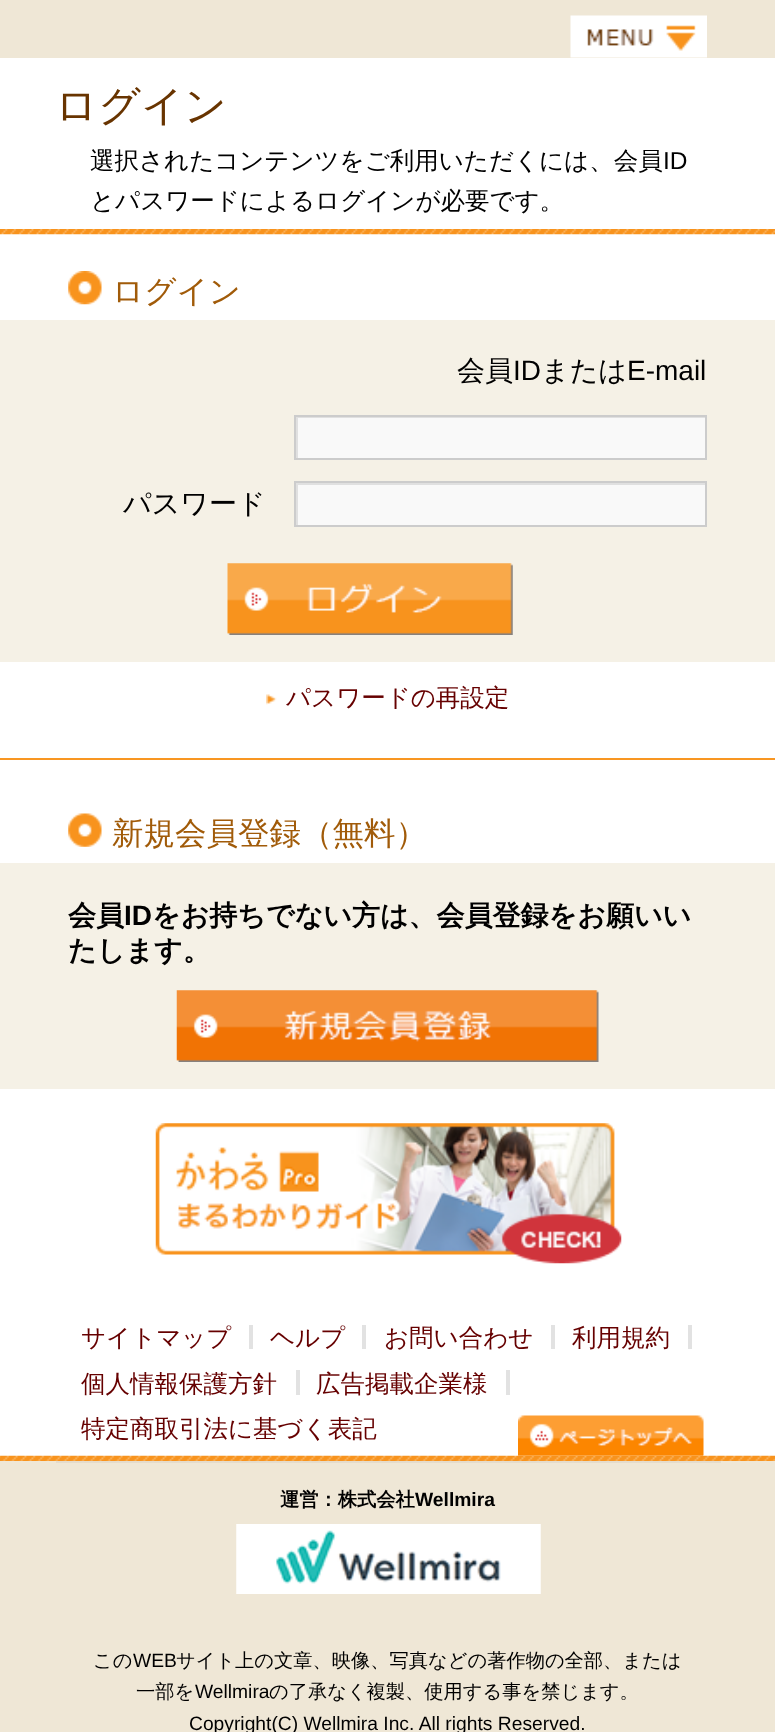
<svg xmlns="http://www.w3.org/2000/svg" xmlns:xlink="http://www.w3.org/1999/xlink" width="775" height="1732" viewBox="0 0 775 1732">
<style>
.cls-1{font:500 42px WenQuanYi Zen Hei;fill:#683400}
.cls-2{font:500 24.5px WenQuanYi Zen Hei;fill:#000000}
.cls-3{font:24.5px Liberation Sans;fill:#000000}
.cls-4{font:500 31.5px WenQuanYi Zen Hei;fill:#a15b09}
.cls-5{font:500 28px WenQuanYi Zen Hei;fill:#000000}
.cls-6{font:28px Liberation Sans;fill:#000000}
.cls-7{font:500 24.5px WenQuanYi Zen Hei;fill:#660000}
.cls-8{font:bold 28px WenQuanYi Zen Hei;fill:#000000}
.cls-9{font:bold 28px Liberation Sans;fill:#000000}
.cls-10{font:bold 19.25px WenQuanYi Zen Hei;fill:#000000}
.cls-11{font:bold 19.25px Liberation Sans;fill:#000000}
.cls-12{font:500 19.25px WenQuanYi Zen Hei;fill:#000000}
.cls-13{font:19.25px Liberation Sans;fill:#000000}
</style>
<defs>
<clipPath id="clip1"><rect x="296" y="417" width="409" height="42"/></clipPath>
<clipPath id="clip2"><rect x="296" y="483" width="409" height="42"/></clipPath>
</defs>
<rect width="100%" height="100%" fill="#efe7d6"/>
<image xlink:href="image0.png" x="570" y="15" width="137" height="43"/>
<rect fill="#ffffff" x="0" y="58" width="775" height="1398"/>
<image xlink:href="image1.png" x="0" y="229" width="775" height="6"/>
<image xlink:href="image2.png" x="68" y="271" width="34" height="34"/>
<rect fill="#f89622" x="0" y="758" width="775" height="2"/>
<rect fill="#f5f1e6" x="0" y="320" width="775" height="342"/>
<rect fill="#f9f9f9" x="298" y="418" width="407" height="40"/>
<g clip-path="url(#clip1)">
<path fill="#e0e0e0" fill-rule="evenodd" d="M122 243H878V632H122ZM298 418H707V460H298Z"/>
</g>
<rect fill="none" stroke="#cccccc" stroke-width="2" x="295" y="416" width="411" height="43"/>
<rect fill="#f9f9f9" x="298" y="485" width="407" height="40"/>
<g clip-path="url(#clip2)">
<path fill="#e0e0e0" fill-rule="evenodd" d="M122 310H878V698H122ZM298 485H707V527H298Z"/>
</g>
<rect fill="none" stroke="#cccccc" stroke-width="2" x="295" y="482" width="411" height="44"/>
<image xlink:href="image3.png" x="227" y="563" width="286" height="72"/>
<image xlink:href="image4.png" x="266" y="694" width="11" height="11"/>
<image xlink:href="image5.png" x="68" y="813" width="34" height="34"/>
<rect fill="#f5f1e6" x="0" y="863" width="775" height="226"/>
<image xlink:href="image6.png" x="176" y="990" width="423" height="72"/>
<image xlink:href="image7.png" x="155" y="1123" width="467" height="141"/>
<image xlink:href="image8.png" x="0" y="1455" width="775" height="6"/>
<rect fill="#e2e2e2" x="249" y="1325" width="4" height="24"/>
<rect fill="#e2e2e2" x="362" y="1325" width="4" height="24"/>
<rect fill="#e2e2e2" x="551" y="1325" width="4" height="24"/>
<rect fill="#e2e2e2" x="688" y="1325" width="4" height="24"/>
<rect fill="#e2e2e2" x="296" y="1370" width="4" height="25"/>
<rect fill="#e2e2e2" x="506" y="1370" width="4" height="25"/>
<rect fill="#ffffff" x="518" y="1455" width="186" height="1"/>
<image xlink:href="image9.png" x="518" y="1415" width="186" height="41"/>
<rect fill="#e5dccc" x="56" y="1461" width="665" height="2"/>
<image xlink:href="image10.png" x="236" y="1524" width="305" height="70"/>
<text class="cls-1" x="55" y="120">ログイン</text>
<text class="cls-2" x="90" y="169">選択されたコンテンツをご利用いただくには、会員</text>
<text class="cls-3" x="663" y="169">ID</text>
<text class="cls-2" x="90" y="209">とパスワードによるログインが必要です。</text>
<text class="cls-4" x="112" y="302">ログイン</text>
<text class="cls-5" x="457" y="380">会員</text>
<text class="cls-6" x="513" y="380">ID</text>
<text class="cls-5" x="541" y="380">または</text>
<text class="cls-6" x="627" y="380">E-mail</text>
<text class="cls-5" x="123" y="513">パスワード</text>
<text class="cls-7" x="286" y="706">パスワードの再設定</text>
<text class="cls-4" x="112" y="844">新規会員登録（無料）</text>
<text class="cls-8" x="68" y="925">会員</text>
<text class="cls-9" x="124" y="925">ID</text>
<text class="cls-8" x="152" y="925">をお持ちでない方は、会員登録をお願いい</text>
<text class="cls-8" x="68" y="960">たします。</text>
<text class="cls-7" x="81" y="1346">サイトマップ</text>
<text class="cls-7" x="270" y="1346">ヘルプ</text>
<text class="cls-7" x="384" y="1346">お問い合わせ</text>
<text class="cls-7" x="572" y="1346">利用規約</text>
<text class="cls-7" x="81" y="1392">個人情報保護方針</text>
<text class="cls-7" x="316" y="1392">広告掲載企業様</text>
<text class="cls-7" x="81" y="1437">特定商取引法に基づく表記</text>
<text class="cls-10" x="280" y="1506">運営：株式会社</text>
<text class="cls-11" x="415" y="1506">Wellmira</text>
<text class="cls-12" x="93" y="1667">この</text>
<text class="cls-13" x="133" y="1667">WEB</text>
<text class="cls-12" x="176" y="1667">サイト上の文章、映像、写真などの著作物の全部、または</text>
<text class="cls-12" x="136" y="1698">一部を</text>
<text class="cls-13" x="195" y="1698">Wellmira</text>
<text class="cls-12" x="269" y="1698">の了承なく複製、使用する事を禁じます。</text>
<text class="cls-13" x="189" y="1730">Copyright(C) Wellmira Inc. All rights Reserved.</text>
</svg>
